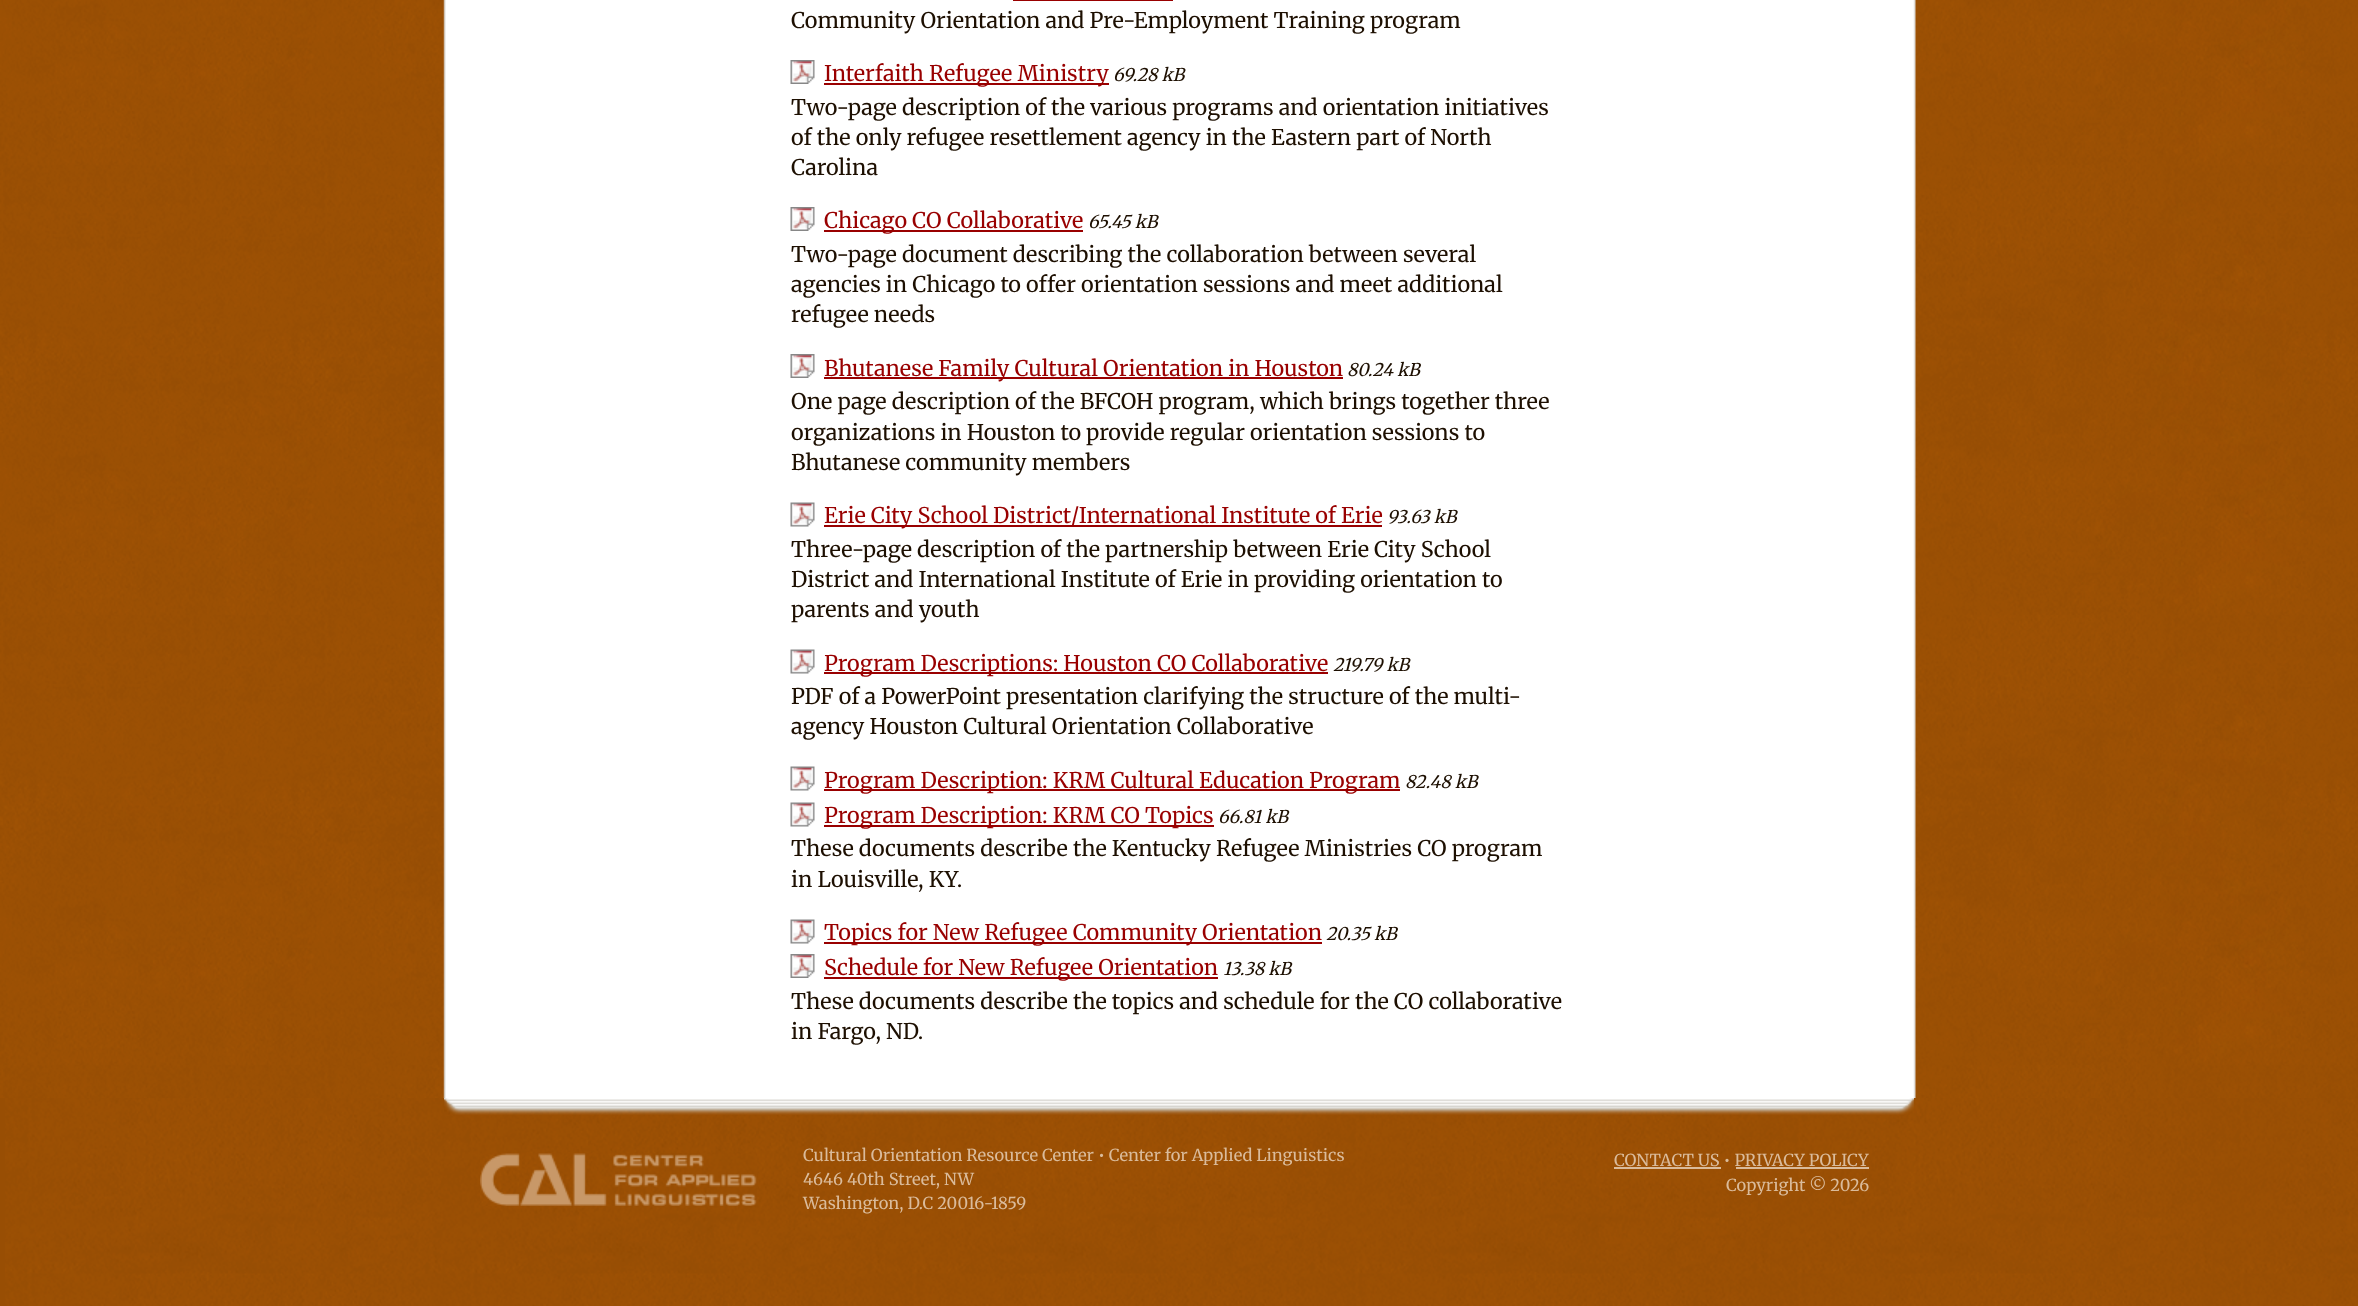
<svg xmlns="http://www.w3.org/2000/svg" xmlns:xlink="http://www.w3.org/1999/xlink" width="2358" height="1306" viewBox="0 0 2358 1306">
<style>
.cls-1{font:21.6px Merriweather;fill:#1d0f01}
.cls-2{font:21.6px Merriweather;fill:#990000}
.cls-3{font:italic 17.5px Merriweather;fill:#1d0f01}
.cls-4{font:16.5px Merriweather;fill:#dabb9b}
</style>
<rect width="100%" height="100%" fill="#ffffff"/>
<image xlink:href="image0.png" x="0" y="0" width="2358" height="1098"/>
<rect fill="#990000" x="1013" y="0" width="160" height="1"/>
<image xlink:href="image1.png" x="790" y="60" width="25" height="24"/>
<rect fill="#990000" x="824" y="83" width="285" height="2"/>
<image xlink:href="image1.png" x="790" y="207" width="25" height="24"/>
<rect fill="#990000" x="824" y="230" width="259" height="2"/>
<image xlink:href="image1.png" x="790" y="354" width="25" height="24"/>
<rect fill="#990000" x="824" y="377" width="519" height="2"/>
<image xlink:href="image2.png" x="790" y="502" width="25" height="25"/>
<rect fill="#990000" x="824" y="525" width="558" height="2"/>
<image xlink:href="image2.png" x="790" y="649" width="25" height="25"/>
<rect fill="#990000" x="824" y="672" width="504" height="2"/>
<image xlink:href="image2.png" x="790" y="766" width="25" height="25"/>
<rect fill="#990000" x="824" y="789" width="576" height="2"/>
<image xlink:href="image2.png" x="790" y="802" width="25" height="25"/>
<rect fill="#990000" x="824" y="825" width="390" height="2"/>
<image xlink:href="image2.png" x="790" y="919" width="25" height="25"/>
<rect fill="#990000" x="824" y="942" width="498" height="2"/>
<image xlink:href="image1.png" x="790" y="954" width="25" height="24"/>
<rect fill="#990000" x="824" y="977" width="394" height="2"/>
<rect fill="#984e04" x="0" y="1098" width="5" height="208"/>
<image xlink:href="image3.png" x="5" y="1098" width="2353" height="208"/>
<image xlink:href="image4.png" x="444" y="1098" width="1470" height="17"/>
<image xlink:href="image5.png" x="480" y="1153" width="277" height="53"/>
<rect fill="#dabb9b" x="1614" y="1167" width="107" height="2"/>
<rect fill="#dabb9b" x="1736" y="1167" width="133" height="2"/>
<text class="cls-1" x="791" y="28">Community Orientation and Pre-Employment Training program</text>
<text class="cls-2" x="824" y="81">Interfaith Refugee Ministry</text>
<text class="cls-3" x="1113" y="81">69.28 kB</text>
<text class="cls-1"><tspan x="791" y="115">Two-page description of the various programs and orientation initiatives</tspan><tspan x="791" y="145">of the only refugee resettlement agency in the Eastern part of North</tspan><tspan x="791" y="175">Carolina</tspan></text>
<text class="cls-2" x="824" y="228">Chicago CO Collaborative</text>
<text class="cls-3" x="1088" y="228">65.45 kB</text>
<text class="cls-1"><tspan x="791" y="262">Two-page document describing the collaboration between several</tspan><tspan x="791" y="292">agencies in Chicago to offer orientation sessions and meet additional</tspan><tspan x="791" y="322">refugee needs</tspan></text>
<text class="cls-2" x="824" y="376">Bhutanese Family Cultural Orientation in Houston</text>
<text class="cls-3" x="1347" y="376">80.24 kB</text>
<text class="cls-1"><tspan x="791" y="409">One page description of the BFCOH program, which brings together three</tspan><tspan x="791" y="440">organizations in Houston to provide regular orientation sessions to</tspan><tspan x="791" y="470">Bhutanese community members</tspan></text>
<text class="cls-2" x="824" y="523">Erie City School District/International Institute of Erie</text>
<text class="cls-3" x="1387" y="523">93.63 kB</text>
<text class="cls-1"><tspan x="791" y="557">Three-page description of the partnership between Erie City School</tspan><tspan x="791" y="587">District and International Institute of Erie in providing orientation to</tspan><tspan x="791" y="617">parents and youth</tspan></text>
<text class="cls-2" x="824" y="671">Program Descriptions: Houston CO Collaborative</text>
<text class="cls-3" x="1333" y="671">219.79 kB</text>
<text class="cls-1"><tspan x="791" y="704">PDF of a PowerPoint presentation clarifying the structure of the multi-</tspan><tspan x="791" y="734">agency Houston Cultural Orientation Collaborative</tspan></text>
<text class="cls-2" x="824" y="788">Program Description: KRM Cultural Education Program</text>
<text class="cls-3" x="1405" y="788">82.48 kB</text>
<text class="cls-2" x="824" y="823">Program Description: KRM CO Topics</text>
<text class="cls-3" x="1218" y="823">66.81 kB</text>
<text class="cls-1"><tspan x="791" y="856">These documents describe the Kentucky Refugee Ministries CO program</tspan><tspan x="791" y="887">in Louisville, KY.</tspan></text>
<text class="cls-2" x="824" y="940">Topics for New Refugee Community Orientation</text>
<text class="cls-3" x="1326" y="940">20.35 kB</text>
<text class="cls-2" x="824" y="975">Schedule for New Refugee Orientation</text>
<text class="cls-3" x="1223" y="975">13.38 kB</text>
<text class="cls-1"><tspan x="791" y="1009">These documents describe the topics and schedule for the CO collaborative</tspan><tspan x="791" y="1039">in Fargo, ND.</tspan></text>
<text class="cls-4"><tspan x="803" y="1161">Cultural Orientation Resource Center • Center for Applied Linguistics</tspan><tspan x="803" y="1185">4646 40th Street, NW</tspan><tspan x="803" y="1209">Washington, D.C 20016-1859</tspan></text>
<text class="cls-4" x="1726" y="1191">Copyright © 2026</text>
<text class="cls-4" x="1614" y="1166">CONTACT US • PRIVACY POLICY</text>
</svg>
